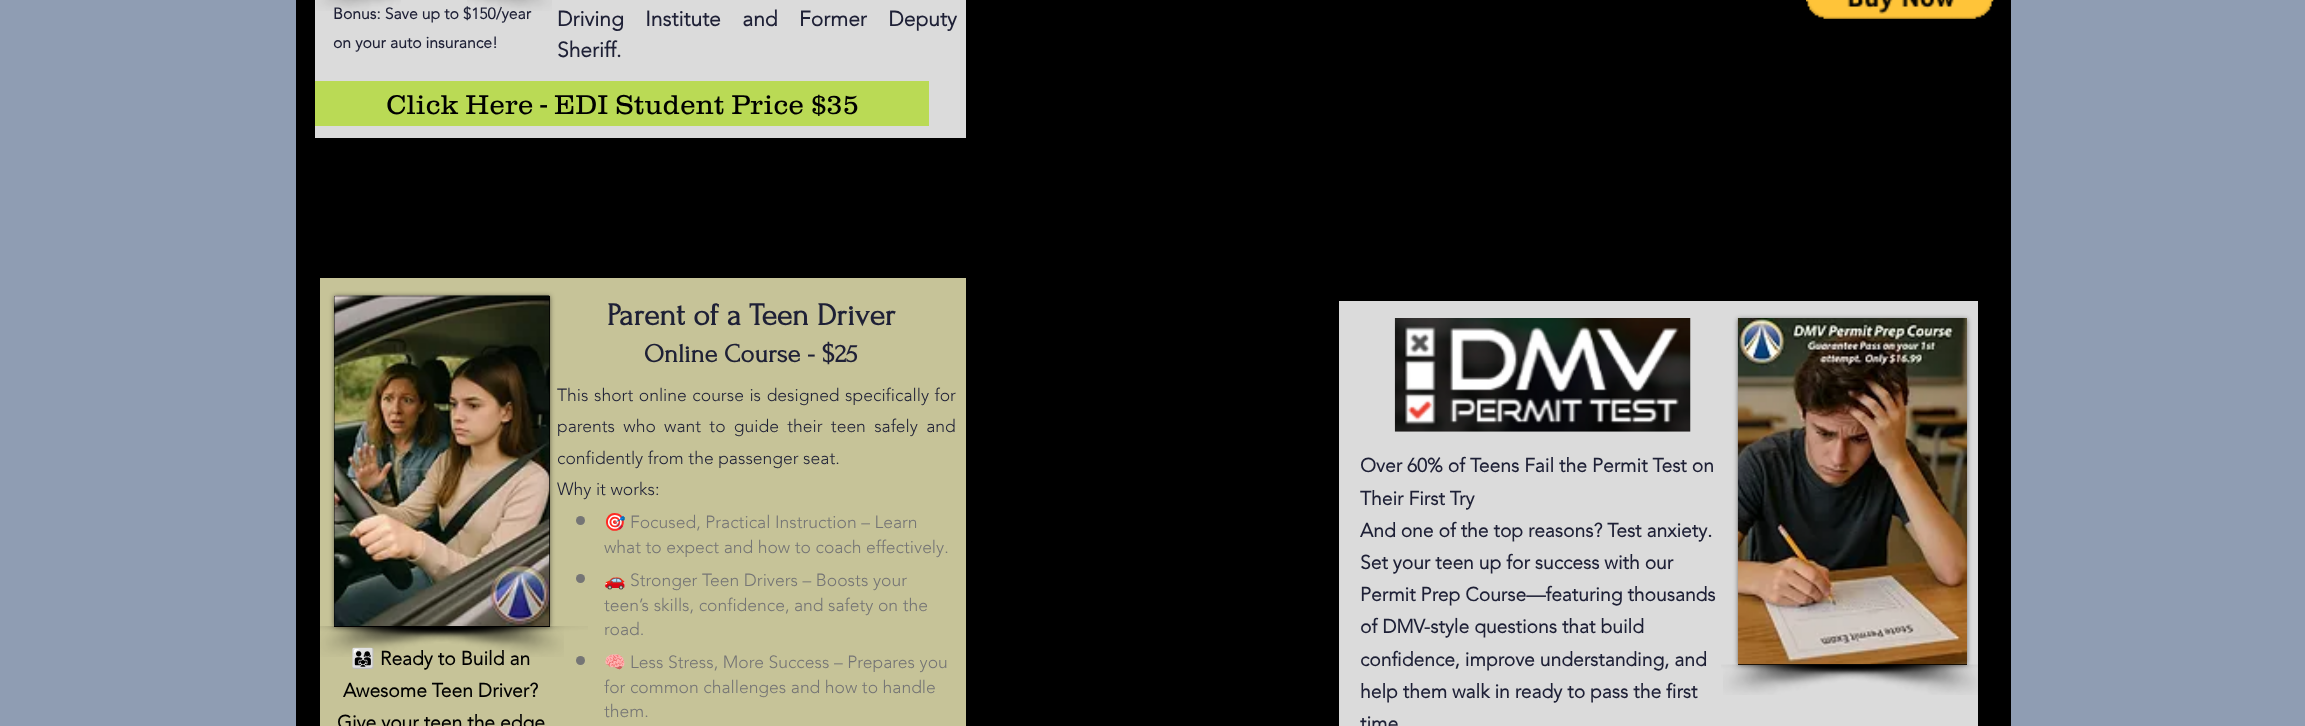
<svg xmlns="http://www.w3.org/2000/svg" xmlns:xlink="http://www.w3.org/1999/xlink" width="2305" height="726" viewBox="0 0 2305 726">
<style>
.cls-1{font:bold 15.75px 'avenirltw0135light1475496';fill:#1e2036}
.cls-2{font:bold 21px 'avenirltw0135light1475496';fill:#1e2036}
.cls-3{font:300 28px 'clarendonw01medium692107';fill:#000000}
.cls-4{font:bold 31.5px Forum;fill:#1e2036}
.cls-5{font:bold 26.25px Forum;fill:#1e2036}
.cls-6{font:bold 19.25px Noto Color Emoji;fill:#000000}
.cls-7{font:bold 19.25px 'avenirltw0135light1475496';fill:#000000}
.cls-8{font:300 17.5px 'avenirltw0135light1475496';fill:#1e2036}
.cls-9{font:17.5px Noto Color Emoji;fill:#757575}
.cls-10{font:300 17.5px 'avenirltw0135light1475496';fill:#757575}
.cls-11{font:bold 19.25px 'avenirltw0135light1475496';fill:#1e2036}
</style>
<rect width="100%" height="100%" fill="#8f9db3"/>
<rect fill="#000000" x="296" y="0" width="1715" height="726"/>
<image xlink:href="image2.png" x="1806" y="0" width="188" height="19"/>
<rect fill="#dbdbdb" x="315" y="0" width="651" height="138"/>
<rect fill="#bada55" x="315" y="81" width="614" height="45"/>
<rect fill="#c6c398" x="320" y="278" width="646" height="448"/>
<rect fill="#000000" fill-opacity="0.5" filter="blur(2.5px)" x="334" y="296" width="216" height="331"/>
<rect fill="#000000" x="334" y="296" width="216" height="331"/>
<image xlink:href="image3.png" x="334" y="295" width="216" height="331"/>
<image xlink:href="image4.png" x="320" y="626" width="268" height="31"/>
<image xlink:href="image5.png" x="320" y="626" width="244" height="31"/>
<circle fill="#757575" cx="580.5" cy="520.5" r="4.5"/>
<circle fill="#757575" cx="580.5" cy="578.5" r="4.5"/>
<circle fill="#757575" cx="580.5" cy="660.5" r="4.5"/>
<rect fill="#dbdbdb" x="1339" y="301" width="639" height="425"/>
<image xlink:href="image6.png" x="1394" y="318" width="297" height="114"/>
<rect fill="#000000" fill-opacity="0.5" filter="blur(2.5px)" x="1738" y="319" width="229" height="346"/>
<rect fill="#000000" x="1738" y="664" width="229" height="1"/>
<image xlink:href="image7.png" x="1737" y="318" width="230" height="347"/>
<image xlink:href="image9.png" x="1723" y="664" width="255" height="31"/>
<image xlink:href="image8.png" x="1721" y="664" width="257" height="31"/>
<text class="cls-1" x="333" y="19">Bonus: Save up to $150/year</text>
<image xlink:href="image1.png" x="467" y="0" width="85" height="11"/>
<image xlink:href="image0.png" x="316" y="0" width="85" height="11"/>
<text class="cls-1" x="333" y="48">on your auto insurance!</text>
<text class="cls-2"><tspan x="557" y="26" word-spacing="16">Driving Institute and Former Deputy</tspan><tspan x="557" y="57">Sheriff.</tspan></text>
<text class="cls-3" x="386" y="114">Click Here - EDI Student Price $35</text>
<text class="cls-4" x="607" y="325">Parent of a Teen Driver</text>
<text class="cls-5" x="644" y="362">Online Course - $25</text>
<text class="cls-6" x="351" y="665">👨‍👩‍👧</text>
<text class="cls-7" x="380" y="665">Ready to Build an</text>
<text class="cls-7" x="343" y="697">Awesome Teen Driver?</text>
<text class="cls-7" x="337" y="729">Give your teen the edge</text>
<text class="cls-8"><tspan x="557" y="401" word-spacing="1">This short online course is designed specifically for</tspan><tspan x="557" y="432" word-spacing="3.75">parents who want to guide their teen safely and</tspan><tspan x="557" y="464">confidently from the passenger seat.</tspan><tspan x="557" y="495">Why it works:</tspan></text>
<text class="cls-9" x="604" y="528">🎯</text>
<text class="cls-10" x="630" y="528">Focused, Practical Instruction – Learn</text>
<text class="cls-10" x="604" y="553">what to expect and how to coach effectively.</text>
<text class="cls-9" x="604" y="586">🚗</text>
<text class="cls-10" x="630" y="586">Stronger Teen Drivers – Boosts your</text>
<text class="cls-10"><tspan x="604" y="611">teen’s skills, confidence, and safety on the</tspan><tspan x="604" y="635">road.</tspan></text>
<text class="cls-9" x="604" y="668">🧠</text>
<text class="cls-10" x="630" y="668">Less Stress, More Success – Prepares you</text>
<text class="cls-10"><tspan x="604" y="693">for common challenges and how to handle</tspan><tspan x="604" y="717">them.</tspan></text>
<text class="cls-11"><tspan x="1360" y="472">Over 60% of Teens Fail the Permit Test on</tspan><tspan x="1360" y="505">Their First Try</tspan><tspan x="1360" y="537">And one of the top reasons? Test anxiety.</tspan><tspan x="1360" y="569">Set your teen up for success with our</tspan><tspan x="1360" y="601">Permit Prep Course—featuring thousands</tspan><tspan x="1360" y="633">of DMV-style questions that build</tspan><tspan x="1360" y="666">confidence, improve understanding, and</tspan><tspan x="1360" y="698">help them walk in ready to pass the first</tspan><tspan x="1360" y="730">time</tspan></text>
</svg>
